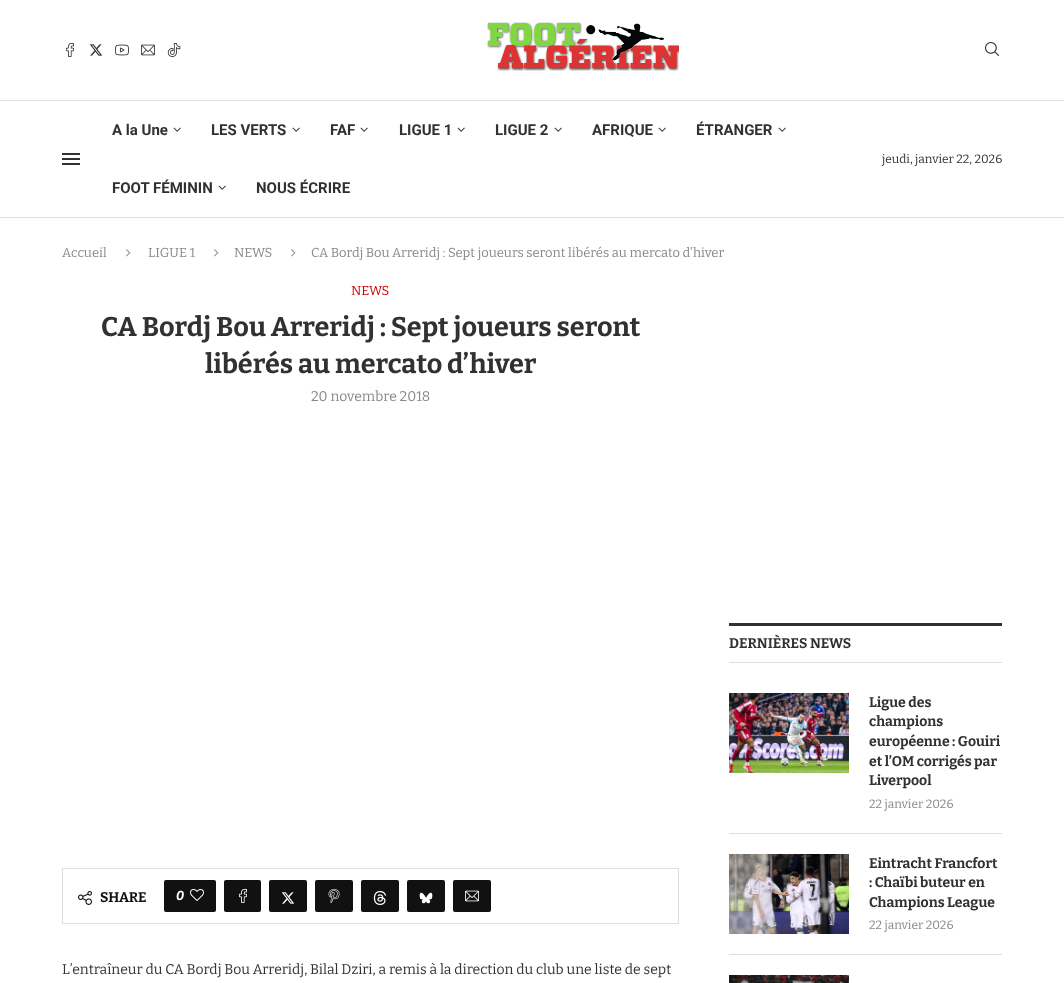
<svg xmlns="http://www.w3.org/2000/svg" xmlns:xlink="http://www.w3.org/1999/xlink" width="1064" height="983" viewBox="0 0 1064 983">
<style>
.cls-1{font:bold 15px Roboto;fill:#313131}
.cls-2{font:12px Bitter;fill:#313131}
.cls-3{font:13px Bitter;fill:#888888}
.cls-4{font:13px Bitter;fill:#cc0000}
.cls-5{font:bold 27px Bitter;fill:#313131}
.cls-6{font:14px Bitter;fill:#888888}
.cls-7{font:bold 14px Bitter;fill:#111111}
.cls-8{font:italic bold 13px Bitter;fill:#ffffff}
.cls-9{font:14px Bitter;fill:#313131}
.cls-10{font:bold 14px Bitter;fill:#313131}
.cls-11{font:12px Bitter;fill:#888888}
</style>
<rect width="100%" height="100%" fill="#ffffff"/>
<image xlink:href="image0.png" x="66" y="42" width="8" height="15"/>
<image xlink:href="image1.png" x="89" y="44" width="14" height="12"/>
<image xlink:href="image2.png" x="115" y="44" width="14" height="12"/>
<image xlink:href="image3.png" x="141" y="44" width="14" height="12"/>
<image xlink:href="image4.png" x="167" y="43" width="14" height="14"/>
<image xlink:href="image5.png" x="487" y="22" width="192" height="49"/>
<image xlink:href="image6.png" x="985" y="42" width="14" height="14"/>
<rect fill="#dedede" x="0" y="100" width="1064" height="1"/>
<rect fill="#dedede" x="0" y="217" width="1064" height="1"/>
<rect fill="#313131" x="62" y="153" width="18" height="2"/>
<rect fill="#313131" x="62" y="163" width="18" height="2"/>
<rect fill="#313131" x="62" y="158" width="18" height="2"/>
<image xlink:href="image7.png" x="173" y="127" width="8" height="5"/>
<image xlink:href="image7.png" x="292" y="127" width="8" height="5"/>
<image xlink:href="image7.png" x="360" y="127" width="8" height="5"/>
<image xlink:href="image7.png" x="457" y="127" width="8" height="5"/>
<image xlink:href="image7.png" x="554" y="127" width="8" height="5"/>
<image xlink:href="image7.png" x="658" y="127" width="8" height="5"/>
<image xlink:href="image7.png" x="778" y="127" width="8" height="5"/>
<image xlink:href="image7.png" x="218" y="185" width="8" height="5"/>
<image xlink:href="image8.png" x="126" y="249" width="5" height="8"/>
<image xlink:href="image8.png" x="214" y="249" width="5" height="8"/>
<image xlink:href="image8.png" x="291" y="249" width="5" height="8"/>
<rect fill="none" stroke="#dedede" x="62.5" y="868.5" width="616" height="55"/>
<image xlink:href="image9.png" x="78" y="891" width="14" height="14"/>
<rect fill="#111111" x="164" y="880" width="52" height="32" rx="2"/>
<image xlink:href="image10.png" x="190" y="889" width="14" height="12"/>
<rect fill="#111111" x="224" y="880" width="37" height="32" rx="2"/>
<image xlink:href="image11.png" x="239" y="888" width="8" height="15"/>
<rect fill="#111111" x="269" y="880" width="38" height="32" rx="2"/>
<image xlink:href="image12.png" x="281" y="892" width="14" height="12"/>
<rect fill="#111111" x="315" y="880" width="38" height="32" rx="2"/>
<image xlink:href="image13.png" x="328" y="889" width="12" height="14"/>
<rect fill="#111111" x="361" y="880" width="38" height="32" rx="2"/>
<image xlink:href="image14.png" x="373" y="891" width="14" height="14"/>
<rect fill="#111111" x="407" y="880" width="38" height="32" rx="2"/>
<image xlink:href="image15.png" x="419" y="892" width="14" height="12"/>
<rect fill="#111111" x="453" y="880" width="38" height="32" rx="2"/>
<image xlink:href="image16.png" x="465" y="890" width="14" height="12"/>
<rect fill="#313131" x="729" y="623" width="273" height="3"/>
<rect fill="#dedede" x="729" y="662" width="273" height="1"/>
<rect fill="#dedede" x="729" y="833" width="273" height="1"/>
<image xlink:href="image17.png" x="729" y="693" width="120" height="80"/>
<rect fill="#dedede" x="729" y="954" width="273" height="1"/>
<image xlink:href="image18.png" x="729" y="854" width="120" height="80"/>
<image xlink:href="image19.png" x="729" y="975" width="120" height="8"/>
<text class="cls-1" x="112" y="135">A la Une</text>
<text class="cls-1" x="211" y="135">LES VERTS</text>
<text class="cls-1" x="330" y="135">FAF</text>
<text class="cls-1" x="399" y="135">LIGUE 1</text>
<text class="cls-1" x="495" y="135">LIGUE 2</text>
<text class="cls-1" x="592" y="135">AFRIQUE</text>
<text class="cls-1" x="696" y="135">ÉTRANGER</text>
<text class="cls-1" x="112" y="193">FOOT FÉMININ</text>
<text class="cls-1" x="256" y="193">NOUS ÉCRIRE</text>
<text class="cls-2" x="882" y="163">jeudi, janvier 22, 2026</text>
<text class="cls-3" x="62" y="257">Accueil</text>
<text class="cls-3" x="148" y="257">LIGUE 1</text>
<text class="cls-3" x="234" y="257">NEWS</text>
<text class="cls-3" x="311" y="257">CA Bordj Bou Arreridj : Sept joueurs seront libérés au mercato d’hiver</text>
<text class="cls-4" x="351" y="295">NEWS</text>
<text class="cls-5" x="101" y="336">CA Bordj Bou Arreridj : Sept joueurs seront</text>
<text class="cls-5" x="205" y="373">libérés au mercato d’hiver</text>
<text class="cls-6" x="311" y="401">20 novembre 2018</text>
<text class="cls-7" x="100" y="902">SHARE</text>
<text class="cls-8" x="176" y="900">0</text>
<text class="cls-9" x="62" y="974">L’entraîneur du CA Bordj Bou Arreridj, Bilal Dziri, a remis à la direction du club une liste de sept</text>
<text class="cls-10" x="729" y="648">DERNIÈRES NEWS</text>
<text class="cls-10"><tspan x="869" y="707">Ligue des</tspan><tspan x="869" y="726">champions</tspan><tspan x="869" y="746">européenne : Gouiri</tspan><tspan x="869" y="766">et l’OM corrigés par</tspan><tspan x="869" y="785">Liverpool</tspan></text>
<text class="cls-11" x="869" y="808">22 janvier 2026</text>
<text class="cls-10"><tspan x="869" y="868">Eintracht Francfort</tspan><tspan x="869" y="887">: Chaïbi buteur en</tspan><tspan x="869" y="907">Champions League</tspan></text>
<text class="cls-11" x="869" y="929">22 janvier 2026</text>
</svg>
